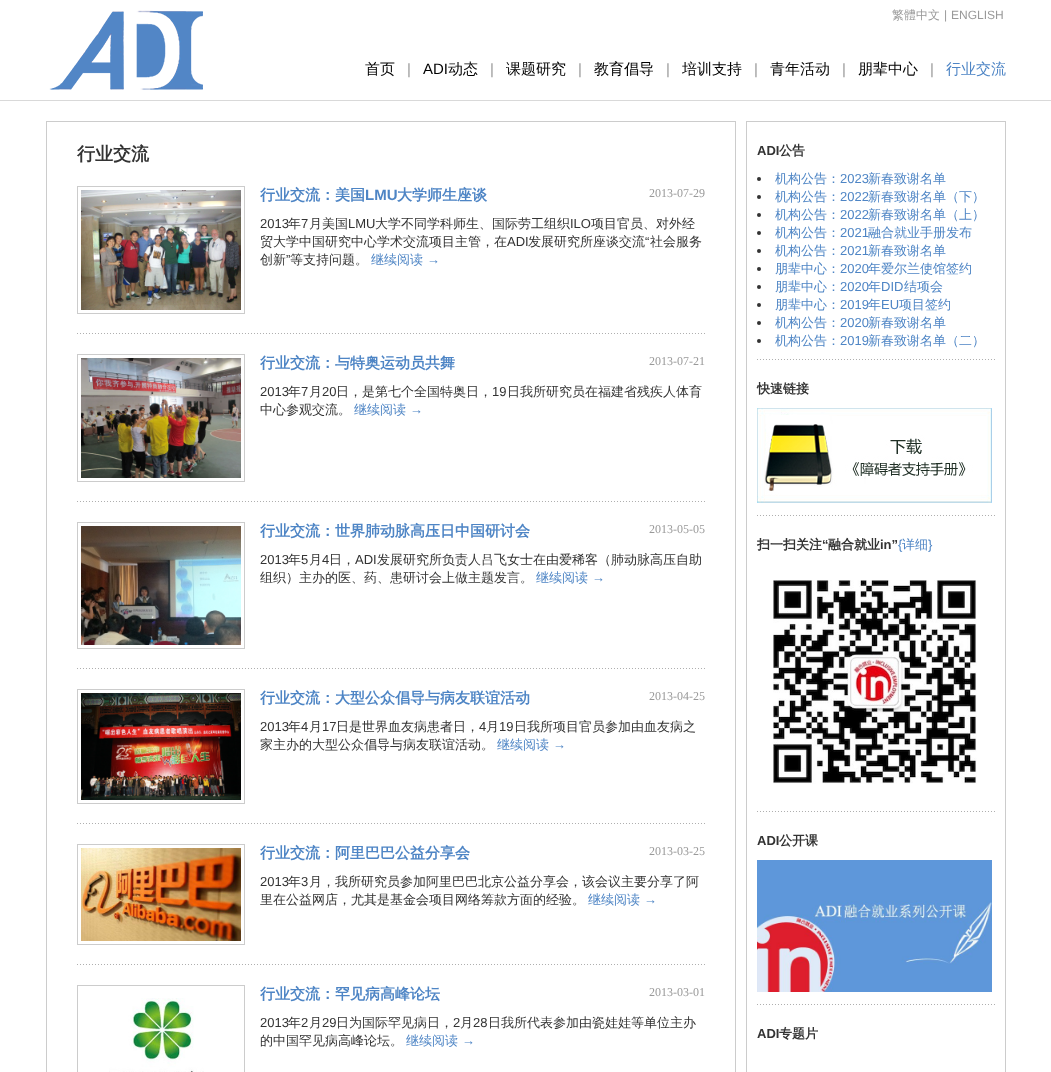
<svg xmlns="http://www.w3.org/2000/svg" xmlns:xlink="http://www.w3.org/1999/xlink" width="1051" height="1072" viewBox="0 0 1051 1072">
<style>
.cls-1{font:500 12px WenQuanYi Zen Hei;fill:#999999}
.cls-2{font:12px Liberation Sans;fill:#999999}
.cls-3{font:500 15px WenQuanYi Zen Hei;fill:#000000}
.cls-4{font:15px Liberation Sans;fill:#999999}
.cls-5{font:15px Liberation Sans;fill:#000000}
.cls-6{font:500 15px WenQuanYi Zen Hei;fill:#4e85c5}
.cls-7{font:bold 18px WenQuanYi Zen Hei;fill:#333333}
.cls-8{font:bold 15px WenQuanYi Zen Hei;fill:#4e85c5}
.cls-9{font:bold 15px Liberation Sans;fill:#4e85c5}
.cls-10{font:12px Liberation Serif;fill:#999999}
.cls-11{font:13px Liberation Sans;fill:#333333}
.cls-12{font:500 13px WenQuanYi Zen Hei;fill:#333333}
.cls-13{font:500 13px WenQuanYi Zen Hei;fill:#4e85c5}
.cls-14{font:13px Liberation Sans;fill:#4e85c5}
.cls-15{font:bold 13px Liberation Sans;fill:#333333}
.cls-16{font:bold 13px WenQuanYi Zen Hei;fill:#333333}
</style>
<rect width="100%" height="100%" fill="#ffffff"/>
<rect fill="#d9d9d9" x="0" y="100" width="1051" height="1"/>
<image xlink:href="image0.png" x="49" y="10" width="154" height="80"/>
<rect fill="none" stroke="#cccccc" x="46.5" y="121.5" width="689" height="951"/>
<image xlink:href="image1.png" x="77" y="333" width="628" height="1"/>
<rect fill="none" stroke="#cccccc" x="77.5" y="186.5" width="167" height="127"/>
<image xlink:href="image2.png" x="81" y="190" width="160" height="120"/>
<image xlink:href="image1.png" x="77" y="501" width="628" height="1"/>
<rect fill="none" stroke="#cccccc" x="77.5" y="354.5" width="167" height="127"/>
<image xlink:href="image3.png" x="81" y="358" width="160" height="120"/>
<image xlink:href="image1.png" x="77" y="668" width="628" height="1"/>
<rect fill="none" stroke="#cccccc" x="77.5" y="522.5" width="167" height="126"/>
<image xlink:href="image4.png" x="81" y="526" width="160" height="119"/>
<image xlink:href="image1.png" x="77" y="823" width="628" height="1"/>
<rect fill="none" stroke="#cccccc" x="77.5" y="689.5" width="167" height="114"/>
<image xlink:href="image5.png" x="81" y="693" width="160" height="107"/>
<image xlink:href="image1.png" x="77" y="964" width="628" height="1"/>
<rect fill="none" stroke="#cccccc" x="77.5" y="844.5" width="167" height="100"/>
<image xlink:href="image6.png" x="81" y="848" width="160" height="93"/>
<rect fill="none" stroke="#cccccc" x="77.5" y="985.5" width="167" height="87"/>
<image xlink:href="image7.png" x="109" y="998" width="95" height="74"/>
<rect fill="none" stroke="#cccccc" x="746.5" y="121.5" width="259" height="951"/>
<image xlink:href="image8.png" x="757" y="359" width="238" height="1"/>
<circle fill="#333333" cx="759" cy="179" r="2"/>
<circle fill="#333333" cx="759" cy="197" r="2"/>
<circle fill="#333333" cx="759" cy="215" r="2"/>
<circle fill="#333333" cx="759" cy="233" r="2"/>
<circle fill="#333333" cx="759" cy="251" r="2"/>
<circle fill="#333333" cx="759" cy="269" r="2"/>
<circle fill="#333333" cx="759" cy="287" r="2"/>
<circle fill="#333333" cx="759" cy="305" r="2"/>
<circle fill="#333333" cx="759" cy="323" r="2"/>
<circle fill="#333333" cx="759" cy="341" r="2"/>
<image xlink:href="image8.png" x="757" y="515" width="238" height="1"/>
<image xlink:href="image9.png" x="757" y="408" width="235" height="95"/>
<image xlink:href="image8.png" x="757" y="811" width="238" height="1"/>
<image xlink:href="image10.png" x="773" y="580" width="204" height="204"/>
<image xlink:href="image8.png" x="757" y="1004" width="238" height="1"/>
<image xlink:href="image11.png" x="757" y="860" width="235" height="132"/>
<text class="cls-1" x="892" y="19">繁體中文</text>
<text class="cls-2" x="944" y="19">|</text>
<text class="cls-2" x="951" y="19">ENGLISH</text>
<text class="cls-3" x="365" y="74">首页</text>
<text class="cls-4" x="407" y="74">|</text>
<text class="cls-5" x="423" y="74">ADI</text>
<text class="cls-3" x="448" y="74">动态</text>
<text class="cls-4" x="490" y="74">|</text>
<text class="cls-3" x="506" y="74">课题研究</text>
<text class="cls-4" x="578" y="74">|</text>
<text class="cls-3" x="594" y="74">教育倡导</text>
<text class="cls-4" x="666" y="74">|</text>
<text class="cls-3" x="682" y="74">培训支持</text>
<text class="cls-4" x="754" y="74">|</text>
<text class="cls-3" x="770" y="74">青年活动</text>
<text class="cls-4" x="842" y="74">|</text>
<text class="cls-3" x="858" y="74">朋辈中心</text>
<text class="cls-4" x="930" y="74">|</text>
<text class="cls-6" x="946" y="74">行业交流</text>
<text class="cls-7" x="77" y="160">行业交流</text>
<text class="cls-8" x="260" y="200">行业交流：美国</text>
<text class="cls-9" x="365" y="200">LMU</text>
<text class="cls-8" x="397" y="200">大学师生座谈</text>
<text class="cls-10" x="649" y="197">2013-07-29</text>
<text class="cls-11" x="260" y="228">2013</text>
<text class="cls-12" x="288" y="228">年</text>
<text class="cls-11" x="301" y="228">7</text>
<text class="cls-12" x="309" y="228">月美国</text>
<text class="cls-11" x="348" y="228">LMU</text>
<text class="cls-12" x="375" y="228">大学不同学科师生、国际劳工组织</text>
<text class="cls-11" x="570" y="228">ILO</text>
<text class="cls-12" x="591" y="228">项目官员、对外经</text>
<text class="cls-12" x="260" y="246">贸大学中国研究中心学术交流项目主管，在</text>
<text class="cls-11" x="507" y="246">ADI</text>
<text class="cls-12" x="528" y="246">发展研究所座谈交流</text>
<text class="cls-11" x="645" y="246">“</text>
<text class="cls-12" x="650" y="246">社会服务</text>
<text class="cls-12" x="260" y="264">创新</text>
<text class="cls-11" x="286" y="264">”</text>
<text class="cls-12" x="290" y="264">等支持问题。</text>
<text class="cls-13" x="371" y="264">继续阅读</text>
<text class="cls-14" x="427" y="264">→</text>
<text class="cls-8" x="260" y="368">行业交流：与特奥运动员共舞</text>
<text class="cls-10" x="649" y="365">2013-07-21</text>
<text class="cls-11" x="260" y="396">2013</text>
<text class="cls-12" x="288" y="396">年</text>
<text class="cls-11" x="301" y="396">7</text>
<text class="cls-12" x="309" y="396">月</text>
<text class="cls-11" x="322" y="396">20</text>
<text class="cls-12" x="336" y="396">日，是第七个全国特奥日，</text>
<text class="cls-11" x="492" y="396">19</text>
<text class="cls-12" x="507" y="396">日我所研究员在福建省残疾人体育</text>
<text class="cls-12" x="260" y="414">中心参观交流。</text>
<text class="cls-13" x="354" y="414">继续阅读</text>
<text class="cls-14" x="410" y="414">→</text>
<text class="cls-8" x="260" y="536">行业交流：世界肺动脉高压日中国研讨会</text>
<text class="cls-10" x="649" y="533">2013-05-05</text>
<text class="cls-11" x="260" y="564">2013</text>
<text class="cls-12" x="288" y="564">年</text>
<text class="cls-11" x="301" y="564">5</text>
<text class="cls-12" x="309" y="564">月</text>
<text class="cls-11" x="322" y="564">4</text>
<text class="cls-12" x="329" y="564">日，</text>
<text class="cls-11" x="355" y="564">ADI</text>
<text class="cls-12" x="377" y="564">发展研究所负责人吕飞女士在由爱稀客（肺动脉高压自助</text>
<text class="cls-12" x="260" y="582">组织）主办的医、药、患研讨会上做主题发言。</text>
<text class="cls-13" x="536" y="582">继续阅读</text>
<text class="cls-14" x="592" y="582">→</text>
<text class="cls-8" x="260" y="703">行业交流：大型公众倡导与病友联谊活动</text>
<text class="cls-10" x="649" y="700">2013-04-25</text>
<text class="cls-11" x="260" y="731">2013</text>
<text class="cls-12" x="288" y="731">年</text>
<text class="cls-11" x="301" y="731">4</text>
<text class="cls-12" x="309" y="731">月</text>
<text class="cls-11" x="322" y="731">17</text>
<text class="cls-12" x="336" y="731">日是世界血友病患者日，</text>
<text class="cls-11" x="479" y="731">4</text>
<text class="cls-12" x="486" y="731">月</text>
<text class="cls-11" x="499" y="731">19</text>
<text class="cls-12" x="514" y="731">日我所项目官员参加由血友病之</text>
<text class="cls-12" x="260" y="749">家主办的大型公众倡导与病友联谊活动。</text>
<text class="cls-13" x="497" y="749">继续阅读</text>
<text class="cls-14" x="553" y="749">→</text>
<text class="cls-8" x="260" y="858">行业交流：阿里巴巴公益分享会</text>
<text class="cls-10" x="649" y="855">2013-03-25</text>
<text class="cls-11" x="260" y="886">2013</text>
<text class="cls-12" x="288" y="886">年</text>
<text class="cls-11" x="301" y="886">3</text>
<text class="cls-12" x="309" y="886">月，我所研究员参加阿里巴巴北京公益分享会，该会议主要分享了阿</text>
<text class="cls-12" x="260" y="904">里在公益网店，尤其是基金会项目网络筹款方面的经验。</text>
<text class="cls-13" x="588" y="904">继续阅读</text>
<text class="cls-14" x="644" y="904">→</text>
<text class="cls-8" x="260" y="999">行业交流：罕见病高峰论坛</text>
<text class="cls-10" x="649" y="996">2013-03-01</text>
<text class="cls-11" x="260" y="1027">2013</text>
<text class="cls-12" x="288" y="1027">年</text>
<text class="cls-11" x="301" y="1027">2</text>
<text class="cls-12" x="309" y="1027">月</text>
<text class="cls-11" x="322" y="1027">29</text>
<text class="cls-12" x="336" y="1027">日为国际罕见病日，</text>
<text class="cls-11" x="453" y="1027">2</text>
<text class="cls-12" x="460" y="1027">月</text>
<text class="cls-11" x="473" y="1027">28</text>
<text class="cls-12" x="488" y="1027">日我所代表参加由瓷娃娃等单位主办</text>
<text class="cls-12" x="260" y="1045">的中国罕见病高峰论坛。</text>
<text class="cls-13" x="406" y="1045">继续阅读</text>
<text class="cls-14" x="462" y="1045">→</text>
<text class="cls-15" x="757" y="155">ADI</text>
<text class="cls-16" x="779" y="155">公告</text>
<text class="cls-13" x="775" y="183">机构公告：</text>
<text class="cls-14" x="840" y="183">2023</text>
<text class="cls-13" x="868" y="183">新春致谢名单</text>
<text class="cls-13" x="775" y="201">机构公告：</text>
<text class="cls-14" x="840" y="201">2022</text>
<text class="cls-13" x="868" y="201">新春致谢名单（下）</text>
<text class="cls-13" x="775" y="219">机构公告：</text>
<text class="cls-14" x="840" y="219">2022</text>
<text class="cls-13" x="868" y="219">新春致谢名单（上）</text>
<text class="cls-13" x="775" y="237">机构公告：</text>
<text class="cls-14" x="840" y="237">2021</text>
<text class="cls-13" x="868" y="237">融合就业手册发布</text>
<text class="cls-13" x="775" y="255">机构公告：</text>
<text class="cls-14" x="840" y="255">2021</text>
<text class="cls-13" x="868" y="255">新春致谢名单</text>
<text class="cls-13" x="775" y="273">朋辈中心：</text>
<text class="cls-14" x="840" y="273">2020</text>
<text class="cls-13" x="868" y="273">年爱尔兰使馆签约</text>
<text class="cls-13" x="775" y="291">朋辈中心：</text>
<text class="cls-14" x="840" y="291">2020</text>
<text class="cls-13" x="868" y="291">年</text>
<text class="cls-14" x="881" y="291">DID</text>
<text class="cls-13" x="904" y="291">结项会</text>
<text class="cls-13" x="775" y="309">朋辈中心：</text>
<text class="cls-14" x="840" y="309">2019</text>
<text class="cls-13" x="868" y="309">年</text>
<text class="cls-14" x="881" y="309">EU</text>
<text class="cls-13" x="899" y="309">项目签约</text>
<text class="cls-13" x="775" y="327">机构公告：</text>
<text class="cls-14" x="840" y="327">2020</text>
<text class="cls-13" x="868" y="327">新春致谢名单</text>
<text class="cls-13" x="775" y="345">机构公告：</text>
<text class="cls-14" x="840" y="345">2019</text>
<text class="cls-13" x="868" y="345">新春致谢名单（二）</text>
<text class="cls-16" x="757" y="393">快速链接</text>
<text class="cls-16" x="757" y="549">扫一扫关注</text>
<text class="cls-15" x="822" y="549">“</text>
<text class="cls-16" x="828" y="549">融合就业</text>
<text class="cls-15" x="880" y="549">in”</text>
<text class="cls-14" x="898" y="549">{</text>
<text class="cls-13" x="902" y="549">详细</text>
<text class="cls-14" x="928" y="549">}</text>
<text class="cls-15" x="757" y="845">ADI</text>
<text class="cls-16" x="779" y="845">公开课</text>
<text class="cls-15" x="757" y="1038">ADI</text>
<text class="cls-16" x="779" y="1038">专题片</text>
</svg>
